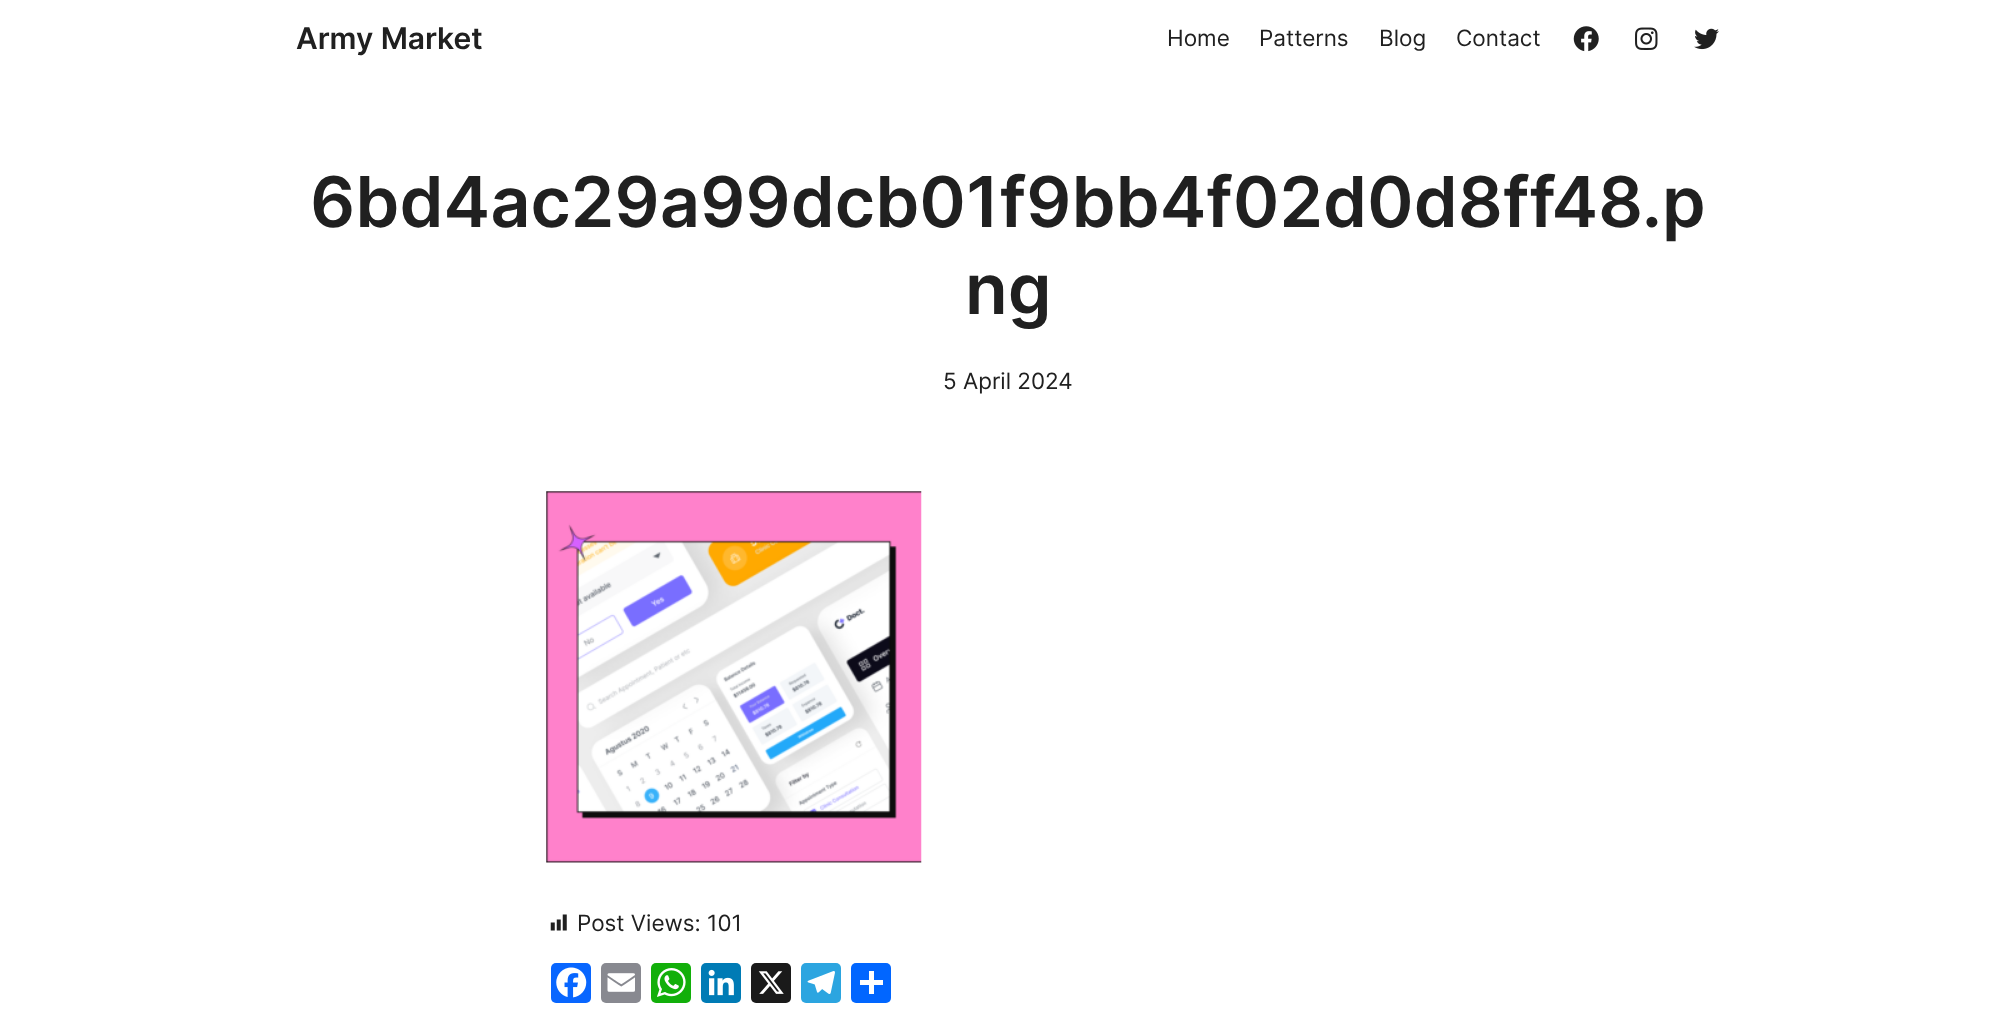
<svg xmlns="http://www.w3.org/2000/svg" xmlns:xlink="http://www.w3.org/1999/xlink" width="2016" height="1020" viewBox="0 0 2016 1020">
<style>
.cls-1{font:600 30px Inter;fill:#202020}
.cls-2{font:22.5px Inter;fill:#202020}
.cls-3{font:600 70px Inter;fill:#202020}
</style>
<rect width="100%" height="100%" fill="#ffffff"/>
<image xlink:href="image0.png" x="1573" y="26" width="26" height="26"/>
<image xlink:href="image1.png" x="1635" y="27" width="23" height="23"/>
<image xlink:href="image2.png" x="1694" y="28" width="25" height="22"/>
<image xlink:href="image3.png" x="546" y="491" width="376" height="372"/>
<image xlink:href="image4.png" x="550" y="914" width="17" height="17"/>
<rect fill="#0866ff" x="551" y="963" width="40" height="40" rx="5"/>
<image xlink:href="image5.png" x="556" y="967" width="31" height="31"/>
<rect fill="#888990" x="601" y="963" width="40" height="40" rx="5"/>
<image xlink:href="image6.png" x="607" y="973" width="28" height="19"/>
<rect fill="#12af0a" x="651" y="963" width="40" height="40" rx="5"/>
<image xlink:href="image7.png" x="657" y="968" width="29" height="29"/>
<rect fill="#007bb5" x="701" y="963" width="40" height="40" rx="5"/>
<image xlink:href="image8.png" x="708" y="969" width="26" height="27"/>
<rect fill="#1a1a1a" x="751" y="963" width="40" height="40" rx="5"/>
<image xlink:href="image9.png" x="758" y="971" width="26" height="23"/>
<rect fill="#2ca5e0" x="801" y="963" width="40" height="40" rx="5"/>
<image xlink:href="image10.png" x="807" y="971" width="28" height="23"/>
<rect fill="#0166ff" x="851" y="963" width="40" height="40" rx="5"/>
<rect fill="#ffffff" x="869" y="971" width="5" height="23"/>
<rect fill="#ffffff" x="860" y="980" width="23" height="5"/>
<text class="cls-1" x="296" y="49">Army Market</text>
<text class="cls-2" x="1167" y="46">Home</text>
<text class="cls-2" x="1259" y="46">Patterns</text>
<text class="cls-2" x="1379" y="46">Blog</text>
<text class="cls-2" x="1456" y="46">Contact</text>
<text class="cls-3" x="310" y="227">6bd4ac29a99dcb01f9bb4f02d0d8ff48.p</text>
<text class="cls-3" x="965" y="314">ng</text>
<text class="cls-2" x="943" y="389">5 April 2024</text>
<text class="cls-2" x="577" y="931">Post Views: 101</text>
</svg>
